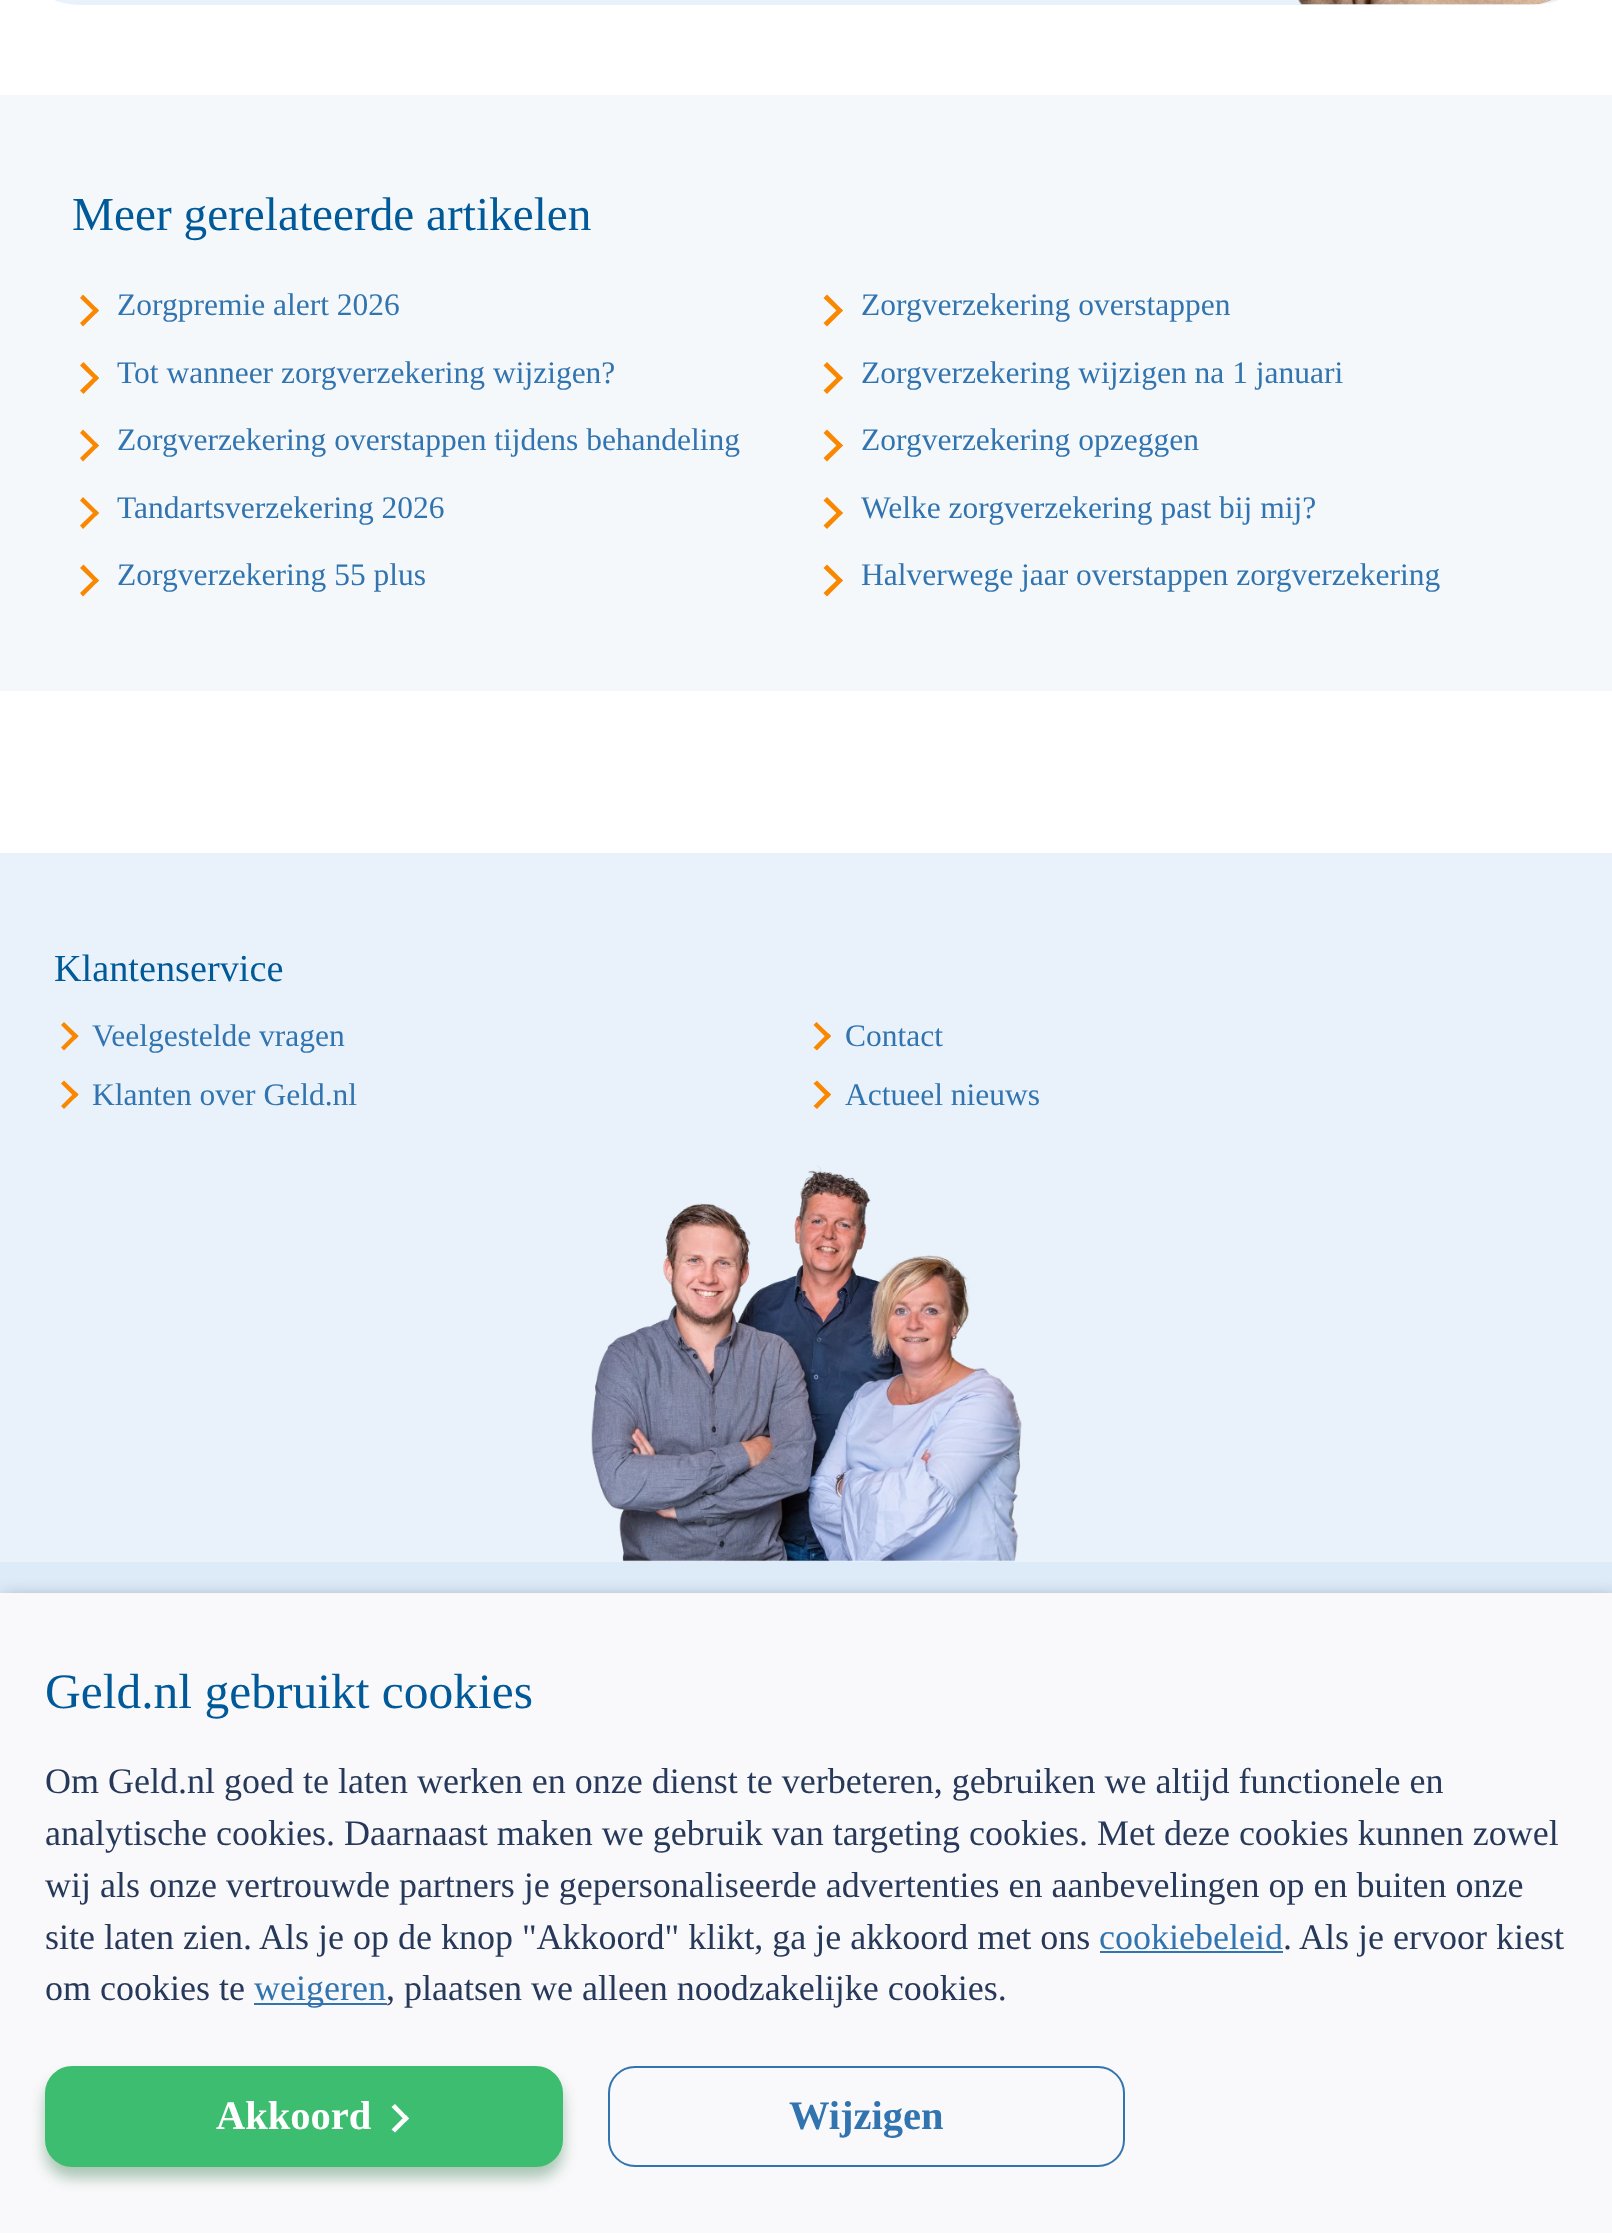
<svg xmlns="http://www.w3.org/2000/svg" xmlns:xlink="http://www.w3.org/1999/xlink" width="1612" height="2233" viewBox="0 0 1612 2233">
<style>
.cls-1{font:47.25px Liberation Serif;fill:#005998}
.cls-2{font:31.5px Liberation Serif;fill:#3174af}
.cls-3{font:38.25px Liberation Serif;fill:#005998}
.cls-4{font:49.5px Liberation Serif;fill:#005998}
.cls-5{font:36px Liberation Serif;fill:#27395a}
.cls-6{font:36px Liberation Serif;fill:#3174af}
.cls-7{font:bold 40.5px Liberation Serif;fill:#3174af}
.cls-8{font:bold 40.5px Liberation Serif;fill:#ffffff}
</style>
<rect width="100%" height="100%" fill="#ffffff"/>
<rect fill="#e9f2fb" x="36" y="-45" width="1541" height="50" rx="45"/>
<image xlink:href="image0.png" x="1298" y="0" width="254" height="5"/>
<rect fill="#f5f8fb" x="0" y="95" width="1612" height="596"/>
<path fill="#fa8700" d="M80 298L83 294.5L99 310.5L96 313.5Z"/>
<path fill="#fa8700" d="M80 323L96 307.5L99 310.5L83 326.5Z"/>
<path fill="#fa8700" d="M823.5 298L827 294.5L843 310.5L839.5 313.5Z"/>
<path fill="#fa8700" d="M823.5 323L839.5 307.5L843 310.5L827 326.5Z"/>
<path fill="#fa8700" d="M80 365.5L83.5 362L99 378L96 381Z"/>
<path fill="#fa8700" d="M80 390.5L96 375L99 378L83.5 394Z"/>
<path fill="#fa8700" d="M823.5 365.5L827 362L843 378L839.5 381Z"/>
<path fill="#fa8700" d="M823.5 390.5L839.5 375L843 378L827 394Z"/>
<path fill="#fa8700" d="M80 433L83 429.5L99 445.5L96 448.5Z"/>
<path fill="#fa8700" d="M80 458L96 442.5L99 445.5L83 461.5Z"/>
<path fill="#fa8700" d="M823.5 433L827 429.5L843 445.5L839.5 448.5Z"/>
<path fill="#fa8700" d="M823.5 458L839.5 442.5L843 445.5L827 461.5Z"/>
<path fill="#fa8700" d="M80 500.5L83 497L99 513L96 516Z"/>
<path fill="#fa8700" d="M80 525.5L96 510L99 513L83 529Z"/>
<path fill="#fa8700" d="M823.5 500.5L827 497L843 513L839.5 516Z"/>
<path fill="#fa8700" d="M823.5 525.5L839.5 510L843 513L827 529Z"/>
<path fill="#fa8700" d="M80 568L83.5 564.5L99 580.5L96 583.5Z"/>
<path fill="#fa8700" d="M80 593L96 577.5L99 580.5L83 596.5Z"/>
<path fill="#fa8700" d="M823.5 568L827 564.5L843 580.5L839.5 583.5Z"/>
<path fill="#fa8700" d="M823.5 593L839.5 577.5L843 580.5L827 596.5Z"/>
<rect fill="#ddebf9" x="0" y="1562" width="1612" height="31"/>
<rect fill="#e9f2fb" x="0" y="853" width="1612" height="709"/>
<path fill="#fa8700" d="M64 1022L78.5 1036L75.5 1039.5L61 1025Z"/>
<path fill="#fa8700" d="M75.5 1033L78.5 1036L64 1050.5L61 1047.5Z"/>
<path fill="#fa8700" d="M816.5 1022L831 1036L828 1039.5L813.5 1025Z"/>
<path fill="#fa8700" d="M828 1033L831 1036L817 1050.5L813.5 1047.5Z"/>
<path fill="#fa8700" d="M64 1080.5L78.5 1094.5L75.5 1098L61 1083.5Z"/>
<path fill="#fa8700" d="M75.5 1091.5L78.5 1094.5L64 1109L61 1106Z"/>
<path fill="#fa8700" d="M817 1080.5L831 1094.5L828 1098L813.5 1083.5Z"/>
<path fill="#fa8700" d="M828 1091.5L831 1094.5L817 1109L813.5 1106Z"/>
<image xlink:href="image1.png" x="591" y="1165" width="431" height="397"/>
<rect fill="#000000" fill-opacity="0.35" filter="blur(9px)" x="2" y="1598" width="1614" height="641"/>
<rect fill="#f9f8fa" x="0" y="1593" width="1612" height="640"/>
<rect fill="#3174af" x="1100" y="1951" width="183" height="2"/>
<rect fill="#3174af" x="254" y="2003" width="133" height="2"/>
<rect fill="none" stroke="#3174af" stroke-width="2" x="609" y="2067" width="515" height="99" rx="26"/>
<rect fill="#186a34" fill-opacity="0.35" filter="blur(7px)" x="45" y="2077" width="518" height="101" rx="27"/>
<rect fill="#3dbd70" x="45" y="2066" width="518" height="101" rx="27"/>
<path fill="#ffffff" d="M391.5 2107L395 2104L409 2118.5L406 2121.5Z"/>
<path fill="#ffffff" d="M391.5 2129.5L406 2115L409 2118.5L395 2132.5Z"/>
<text class="cls-1" x="72" y="230">Meer gerelateerde artikelen</text>
<text class="cls-2" x="117" y="315">Zorgpremie alert 2026</text>
<text class="cls-2" x="861" y="315">Zorgverzekering overstappen</text>
<text class="cls-2" x="117" y="383">Tot wanneer zorgverzekering wijzigen?</text>
<text class="cls-2" x="861" y="383">Zorgverzekering wijzigen na 1 januari</text>
<text class="cls-2" x="117" y="450">Zorgverzekering overstappen tijdens behandeling</text>
<text class="cls-2" x="861" y="450">Zorgverzekering opzeggen</text>
<text class="cls-2" x="117" y="518">Tandartsverzekering 2026</text>
<text class="cls-2" x="861" y="518">Welke zorgverzekering past bij mij?</text>
<text class="cls-2" x="117" y="585">Zorgverzekering 55 plus</text>
<text class="cls-2" x="861" y="585">Halverwege jaar overstappen zorgverzekering</text>
<text class="cls-3" x="54" y="981">Klantenservice</text>
<text class="cls-2" x="92" y="1046">Veelgestelde vragen</text>
<text class="cls-2" x="845" y="1046">Contact</text>
<text class="cls-2" x="92" y="1105">Klanten over Geld.nl</text>
<text class="cls-2" x="845" y="1105">Actueel nieuws</text>
<text class="cls-4" x="45" y="1708">Geld.nl gebruikt cookies</text>
<text class="cls-5"><tspan x="45" y="1793">Om Geld.nl goed te laten werken en onze dienst te verbeteren, gebruiken we altijd functionele en</tspan><tspan x="45" y="1845">analytische cookies. Daarnaast maken we gebruik van targeting cookies. Met deze cookies kunnen zowel</tspan><tspan x="45" y="1897">wij als onze vertrouwde partners je gepersonaliseerde advertenties en aanbevelingen op en buiten onze</tspan><tspan x="45" y="1949">site laten zien. Als je op de knop "Akkoord" klikt, ga je akkoord met ons</tspan></text>
<text class="cls-6" x="1099" y="1949">cookiebeleid</text>
<text class="cls-5" x="1283" y="1949">. Als je ervoor kiest</text>
<text class="cls-5" x="45" y="2000">om cookies te</text>
<text class="cls-6" x="254" y="2000">weigeren</text>
<text class="cls-5" x="386" y="2000">, plaatsen we alleen noodzakelijke cookies.</text>
<text class="cls-7" x="789" y="2129">Wijzigen</text>
<text class="cls-8" x="216" y="2129">Akkoord</text>
</svg>
